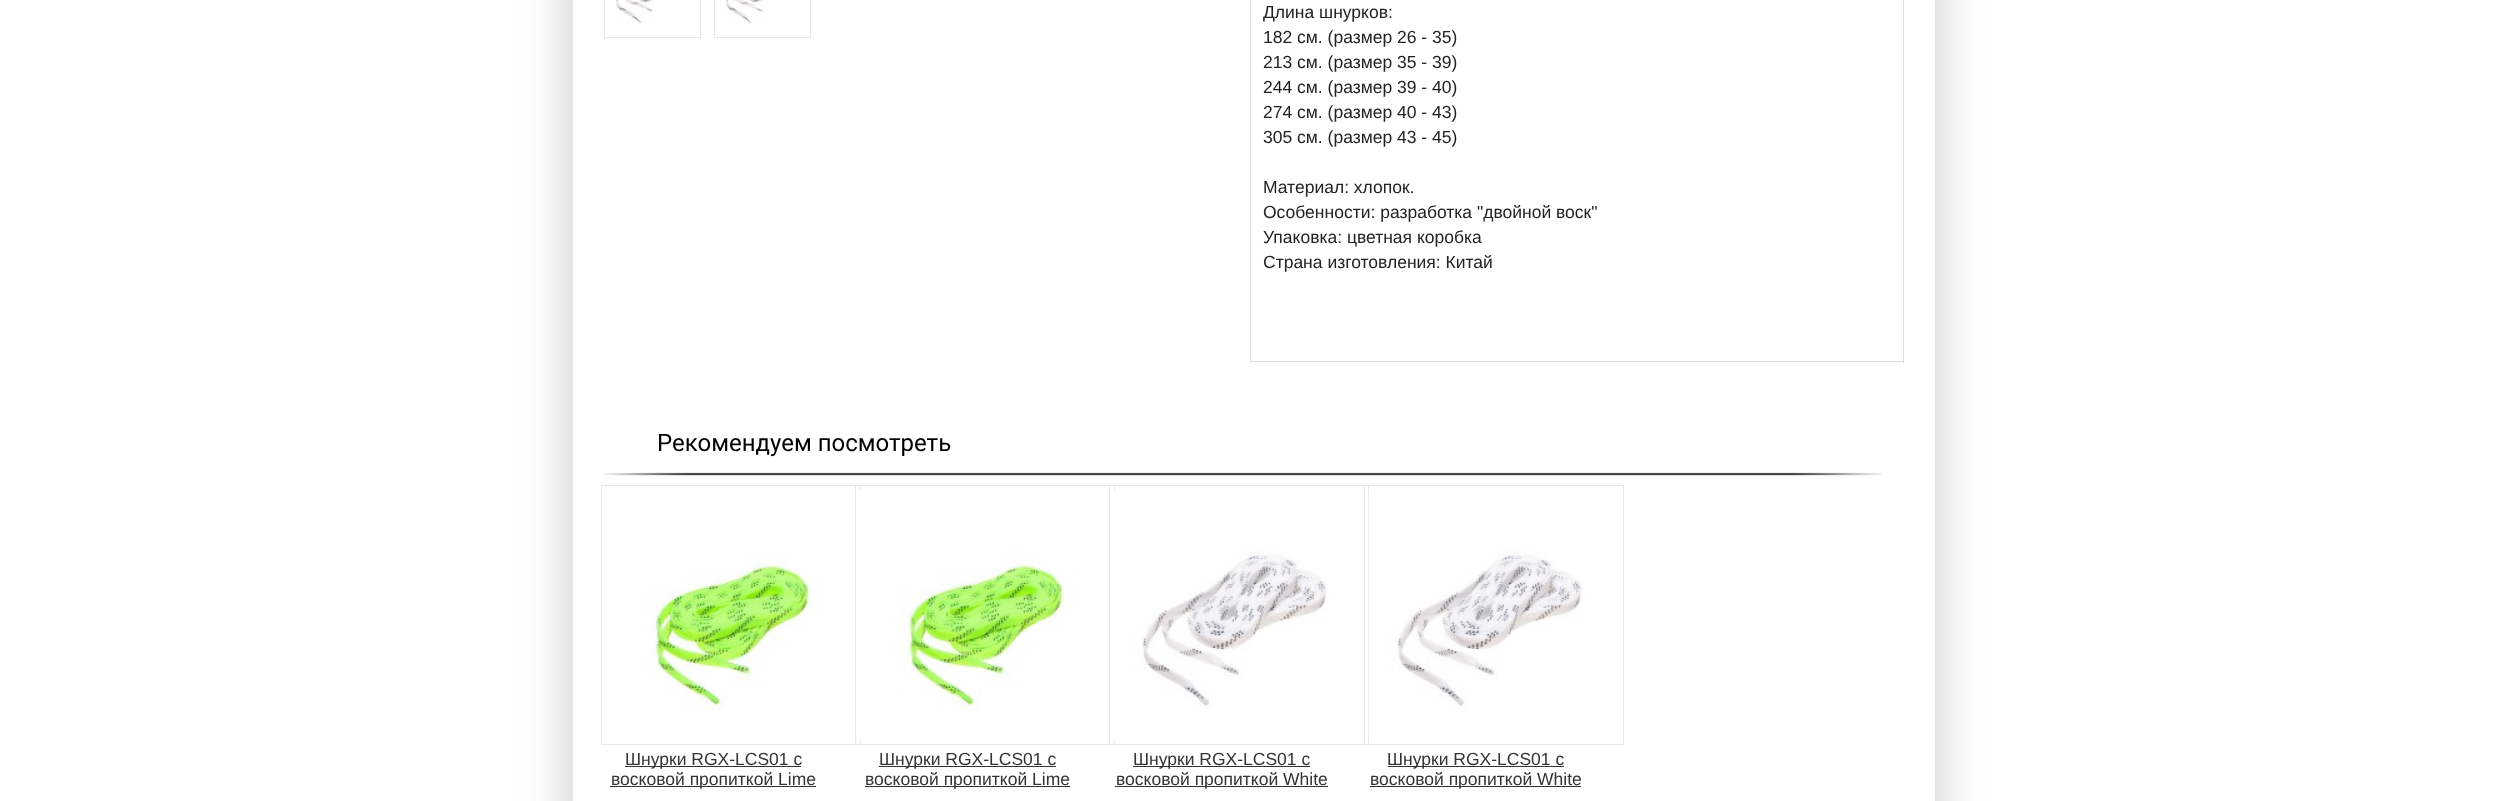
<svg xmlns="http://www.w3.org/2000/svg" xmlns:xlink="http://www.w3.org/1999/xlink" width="2506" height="801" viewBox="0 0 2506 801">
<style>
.cls-1{font:17.5px Liberation Sans;fill:#222222}
.cls-2{font:24px Roboto;fill:#000000}
.cls-3{font:17.5px Liberation Sans;fill:#333333}
</style>
<defs>
<clipPath id="clip1"><path d="M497 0H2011V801H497ZM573-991H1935V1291H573Z" clip-rule="evenodd"/></clipPath>
</defs>
<rect width="100%" height="100%" fill="#ffffff"/>
<g clip-path="url(#clip1)">
<rect fill="#c7c7c7" filter="blur(25px)" x="573" y="-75" width="1362" height="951"/>
</g>
<rect fill="none" stroke="#e7e7e7" x="604.5" y="-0.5" width="96" height="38"/>
<image xlink:href="image0.png" x="616" y="0" width="38" height="24"/>
<rect fill="none" stroke="#e7e7e7" x="714.5" y="-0.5" width="96" height="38"/>
<image xlink:href="image1.png" x="726" y="0" width="38" height="24"/>
<rect fill="#dddddd" x="1903" y="0" width="1" height="363"/>
<rect fill="#dddddd" x="1250" y="361" width="654" height="1"/>
<rect fill="#dddddd" x="1250" y="0" width="1" height="363"/>
<image xlink:href="image2.png" x="604" y="472" width="1278" height="4"/>
<rect fill="none" stroke="#e7e7e7" x="601.5" y="485.5" width="259" height="259"/>
<image xlink:href="image3.png" x="646" y="555" width="175" height="156"/>
<rect fill="#333333" x="625" y="766" width="176" height="1"/>
<rect fill="#333333" x="610" y="786" width="206" height="1"/>
<rect fill="none" stroke="#e7e7e7" x="855.5" y="485.5" width="259" height="259"/>
<image xlink:href="image4.png" x="860" y="490" width="215" height="251"/>
<rect fill="#333333" x="879" y="766" width="177" height="1"/>
<rect fill="#333333" x="865" y="786" width="205" height="1"/>
<rect fill="none" stroke="#e7e7e7" x="1109.5" y="485.5" width="259" height="259"/>
<image xlink:href="image5.png" x="1114" y="490" width="214" height="251"/>
<rect fill="#333333" x="1133" y="766" width="177" height="1"/>
<rect fill="#333333" x="1115" y="786" width="213" height="1"/>
<rect fill="none" stroke="#e7e7e7" x="1364.5" y="485.5" width="259" height="259"/>
<image xlink:href="image6.png" x="1368" y="490" width="215" height="250"/>
<rect fill="#333333" x="1388" y="766" width="176" height="1"/>
<rect fill="#333333" x="1370" y="786" width="211" height="1"/>
<text class="cls-1"><tspan x="1263" y="18">Длина шнурков:</tspan><tspan x="1263" y="43">182 см. (размер 26 - 35)</tspan><tspan x="1263" y="68">213 см. (размер 35 - 39)</tspan><tspan x="1263" y="93">244 см. (размер 39 - 40)</tspan><tspan x="1263" y="118">274 см. (размер 40 - 43)</tspan><tspan x="1263" y="143">305 см. (размер 43 - 45)</tspan></text>
<text class="cls-1"><tspan x="1263" y="193">Материал: хлопок.</tspan><tspan x="1263" y="218">Особенности: разработка "двойной воск"</tspan><tspan x="1263" y="243">Упаковка: цветная коробка</tspan><tspan x="1263" y="268">Страна изготовления: Китай</tspan></text>
<text class="cls-2" x="657" y="451">Рекомендуем посмотреть</text>
<text class="cls-3" x="625" y="765">Шнурки RGX-LCS01 с</text>
<text class="cls-3" x="611" y="785">восковой пропиткой Lime</text>
<text class="cls-3" x="879" y="765">Шнурки RGX-LCS01 с</text>
<text class="cls-3" x="865" y="785">восковой пропиткой Lime</text>
<text class="cls-3" x="1133" y="765">Шнурки RGX-LCS01 с</text>
<text class="cls-3" x="1116" y="785">восковой пропиткой White</text>
<text class="cls-3" x="1387" y="765">Шнурки RGX-LCS01 с</text>
<text class="cls-3" x="1370" y="785">восковой пропиткой White</text>
</svg>
